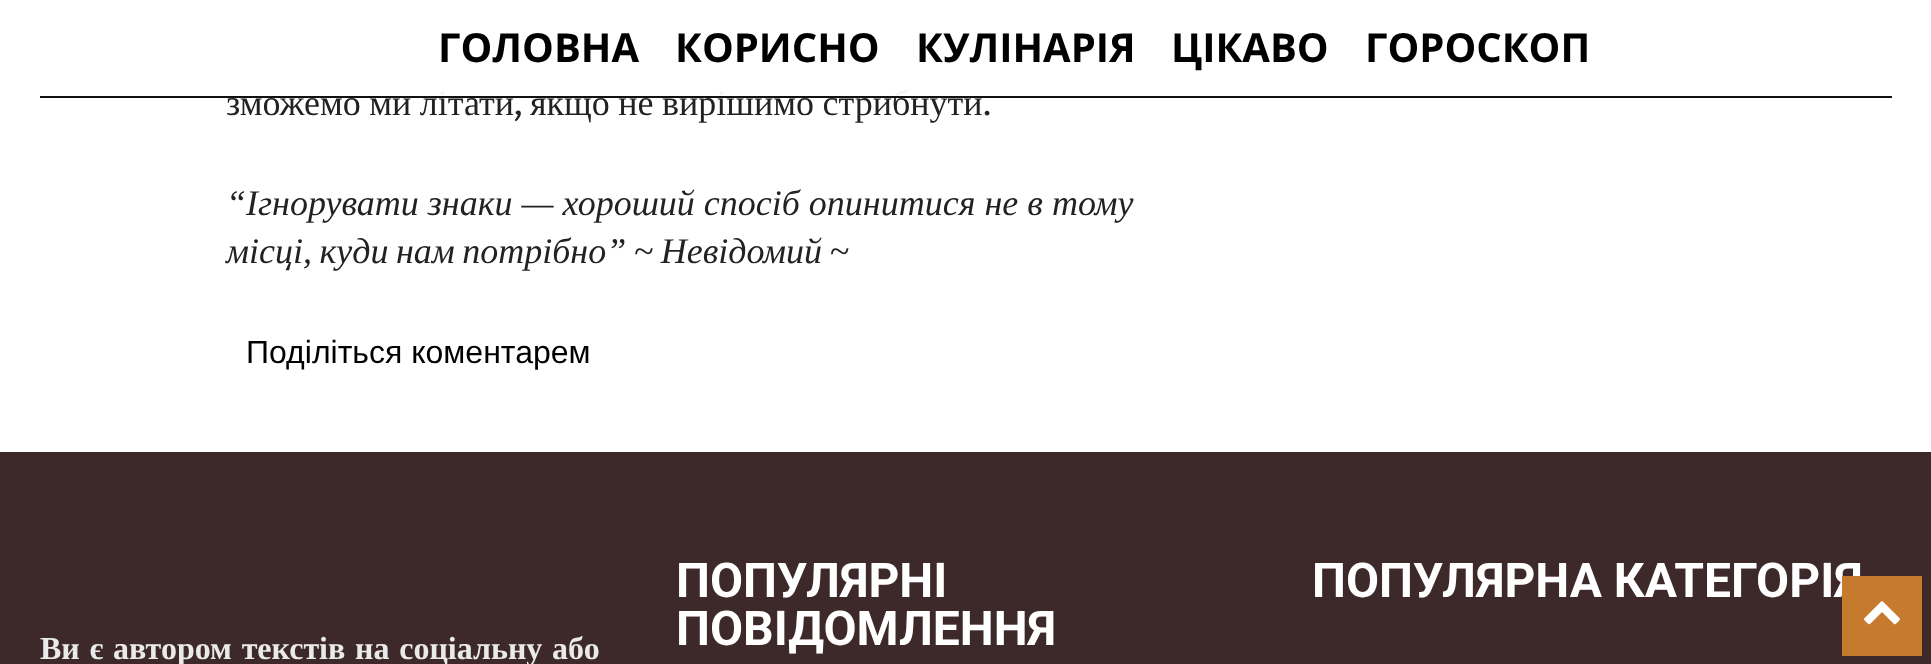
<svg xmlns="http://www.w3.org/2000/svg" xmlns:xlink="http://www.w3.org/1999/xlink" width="1931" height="664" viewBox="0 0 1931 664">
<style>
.cls-1{font:bold 40px Open Sans;fill:#000000}
.cls-2{font:36px Liberation Serif;fill:#222222}
.cls-3{font:36px Volkhov;fill:#222222}
.cls-4{font:italic 36px Liberation Serif;fill:#222222}
.cls-5{font:32px Liberation Sans;fill:#000000}
.cls-6{font:bold 48px Roboto;fill:#ffffff}
.cls-7{font:bold 32px Liberation Serif;fill:#eaeaea}
</style>
<rect width="100%" height="100%" fill="#ffffff"/>
<rect fill="#3d2929" x="0" y="452" width="1931" height="212"/>
<text class="cls-1" x="438" y="62">ГОЛОВНА</text>
<text class="cls-1" x="675" y="62">КОРИСНО</text>
<text class="cls-1" x="916" y="62">КУЛІНАРІЯ</text>
<text class="cls-1" x="1171" y="62">ЦІКАВО</text>
<text class="cls-1" x="1365" y="62">ГОРОСКОП</text>
<text class="cls-2" x="226" y="115" word-spacing="-0.5">зможемо ми літати</text>
<text class="cls-3" x="514" y="115">,</text>
<text class="cls-2" x="530" y="115" word-spacing="-0.5">якщо не вирішимо стрибнути</text>
<rect fill="#ffffff" fill-opacity="0.95" x="440" y="89" width="469" height="9"/>
<rect fill="#111111" x="40" y="96" width="1852" height="2"/>
<text class="cls-3" x="983" y="115">.</text>
<text class="cls-4"><tspan x="226" y="215">“Ігнорувати знаки — хороший спосіб опинитися не в тому</tspan><tspan x="226" y="263" word-spacing="-1.5">місці, куди нам потрібно” ~ Невідомий ~</tspan></text>
<text class="cls-5" x="246" y="363">Поділіться коментарем</text>
<text class="cls-6"><tspan x="676" y="597">ПОПУЛЯРНІ</tspan><tspan x="676" y="645">ПОВІДОМЛЕННЯ</tspan></text>
<text class="cls-6" x="1312" y="597">ПОПУЛЯРНА КАТЕГОРІЯ</text>
<text class="cls-7" x="40" y="659" word-spacing="1.75">Ви є автором текстів на соціальну або</text>
<rect fill="#c67a2d" x="1842" y="576" width="80" height="80"/>
<image xlink:href="image0.png" x="1864" y="601" width="36" height="24"/>
</svg>
